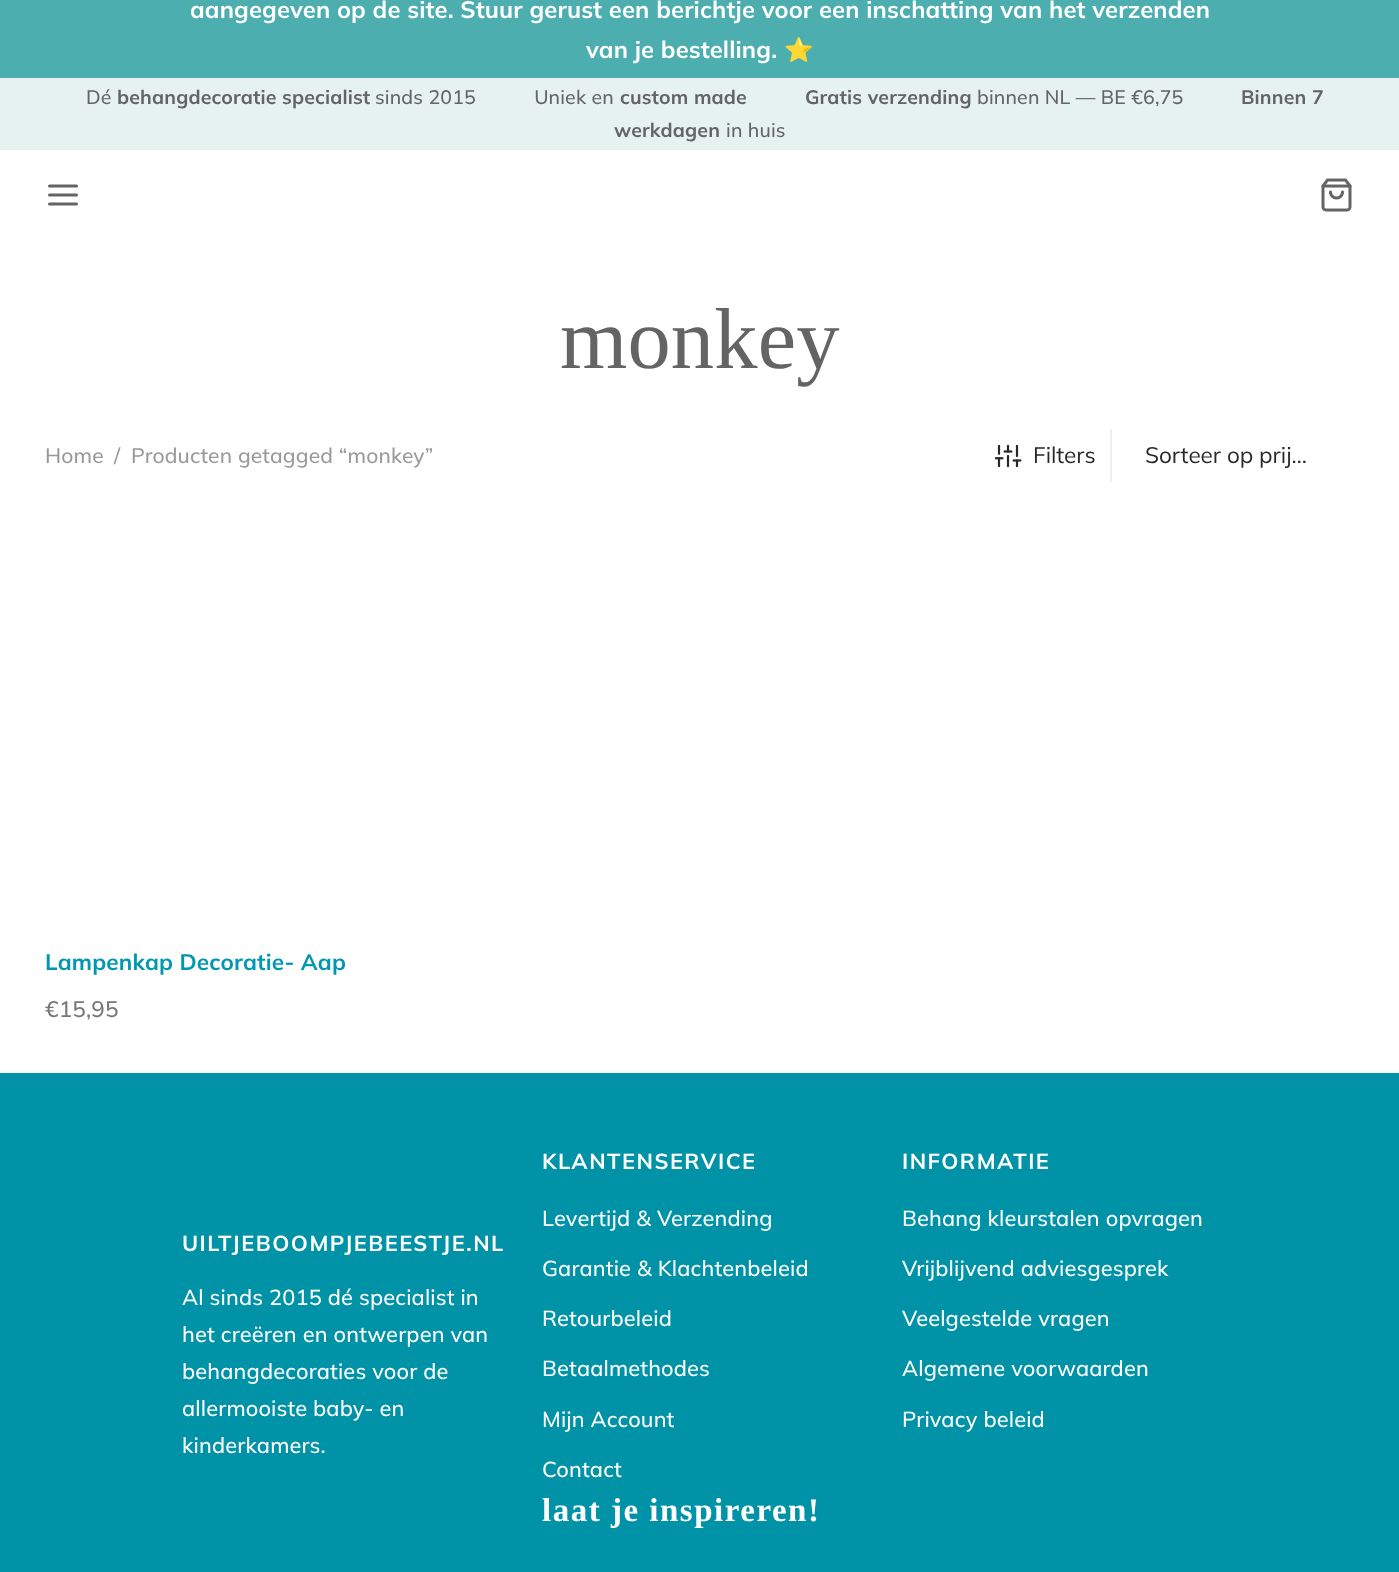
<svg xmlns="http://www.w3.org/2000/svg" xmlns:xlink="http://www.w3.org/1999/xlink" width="1399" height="1572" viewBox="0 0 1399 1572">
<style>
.cls-1{font:bold 23.7px Mulish;letter-spacing:0.15px;fill:#ffffff}
.cls-2{font:bold 23.7px Noto Color Emoji;letter-spacing:0.15px;fill:#ffffff}
.cls-3{font:500 19.5px Mulish;letter-spacing:0.15px;fill:#646464}
.cls-4{font:bold 19.5px Mulish;letter-spacing:0.15px;fill:#646464}
.cls-5{font:86.5px Liberation Serif;letter-spacing:0.15px;fill:#646464}
.cls-6{font:500 21px Mulish;letter-spacing:0.15px;fill:#999999}
.cls-7{font:22.5px Mulish;fill:#282828}
.cls-8{font:bold 22.5px Mulish;letter-spacing:0.15px;fill:#0097b1}
.cls-9{font:500 22.5px Mulish;letter-spacing:0.15px;fill:#777777}
.cls-10{font:bold 21.75px Mulish;letter-spacing:1.5px;fill:#ffffff}
.cls-11{font:500 21.75px Mulish;letter-spacing:0.15px;fill:#ffffff}
.cls-12{font:bold 33px Liberation Serif;letter-spacing:1.5px;fill:#ffffff}
</style>
<rect width="100%" height="100%" fill="#ffffff"/>
<rect fill="#4daeb0" x="0" y="0" width="1399" height="78"/>
<rect fill="#e5f2ef" x="0" y="78" width="1399" height="72"/>
<path fill="none" stroke="#646464" stroke-width="3" stroke-linecap="round" stroke-linejoin="round" d="M49.5 195H76.5M49.5 186H76.5M49.5 204H76.5"/>
<image xlink:href="image0.png" x="1321" y="178" width="31" height="34"/>
<rect fill="#eeeeee" x="1110" y="429" width="2" height="53"/>
<image xlink:href="image1.png" x="995" y="444" width="27" height="24"/>
<rect fill="#0092a7" x="0" y="1073" width="1399" height="499"/>
<text class="cls-1" x="190" y="18">aangegeven op de site. Stuur gerust een berichtje voor een inschatting van het verzenden</text>
<text class="cls-1" x="586" y="58">van je bestelling.</text>
<text class="cls-2" x="784" y="58">⭐</text>
<text class="cls-3" x="86" y="104">Dé</text>
<text class="cls-4" x="117" y="104">behangdecoratie specialist</text>
<text class="cls-3" xml:space="preserve" x="375" y="104">sinds 2015           Uniek en</text>
<text class="cls-4" x="620" y="104">custom made</text>
<text class="cls-4" x="805" y="104">Gratis verzending</text>
<text class="cls-3" x="977" y="104">binnen NL — BE €6,75</text>
<text class="cls-4" x="1241" y="104">Binnen 7</text>
<text class="cls-4" x="614" y="137">werkdagen</text>
<text class="cls-3" x="726" y="137">in huis</text>
<text class="cls-5" x="560" y="368">monkey</text>
<text class="cls-6" x="45" y="463">Home</text>
<text class="cls-6" x="114" y="463">/</text>
<text class="cls-6" x="131" y="463">Producten getagged “monkey”</text>
<text class="cls-7" x="1033" y="463">Filters</text>
<text class="cls-7" x="1145" y="463">Sorteer op prij…</text>
<text class="cls-8" x="45" y="970">Lampenkap Decoratie- Aap</text>
<text class="cls-9" x="45" y="1017">€15,95</text>
<text class="cls-10" x="182" y="1251">UILTJEBOOMPJEBEESTJE.NL</text>
<text class="cls-11"><tspan x="182" y="1305">Al sinds 2015 dé specialist in</tspan><tspan x="182" y="1342">het creëren en ontwerpen van</tspan><tspan x="182" y="1379">behangdecoraties voor de</tspan><tspan x="182" y="1416">allermooiste baby- en</tspan><tspan x="182" y="1453">kinderkamers.</tspan></text>
<text class="cls-10" x="542" y="1169">KLANTENSERVICE</text>
<text class="cls-11" x="542" y="1226">Levertijd &amp; Verzending</text>
<text class="cls-11" x="542" y="1276">Garantie &amp; Klachtenbeleid</text>
<text class="cls-11" x="542" y="1326">Retourbeleid</text>
<text class="cls-11" x="542" y="1376">Betaalmethodes</text>
<text class="cls-11" x="542" y="1427">Mijn Account</text>
<text class="cls-11" x="542" y="1477">Contact</text>
<text class="cls-10" x="902" y="1169">INFORMATIE</text>
<text class="cls-11" x="902" y="1226">Behang kleurstalen opvragen</text>
<text class="cls-11" x="902" y="1276">Vrijblijvend adviesgesprek</text>
<text class="cls-11" x="902" y="1326">Veelgestelde vragen</text>
<text class="cls-11" x="902" y="1376">Algemene voorwaarden</text>
<text class="cls-11" x="902" y="1427">Privacy beleid</text>
<text class="cls-12" x="542" y="1521">laat je inspireren!</text>
</svg>
